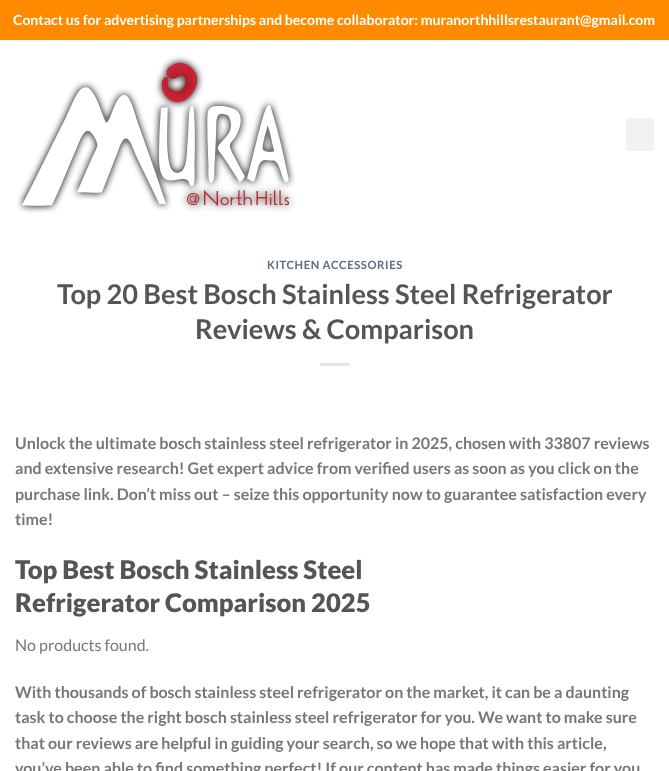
<svg xmlns="http://www.w3.org/2000/svg" xmlns:xlink="http://www.w3.org/1999/xlink" width="669" height="771" viewBox="0 0 669 771">
<style>
.cls-1{font:bold 14px Lato;fill:#ffffff}
.cls-2{font:bold 11.25px Lato;letter-spacing:0.6px;fill:#5c6d81}
.cls-3{font:bold 27.2px Lato;fill:#555555}
.cls-4{font:bold 16px Lato;fill:#777777}
.cls-5{font:900 25.6px Lato;fill:#555555}
.cls-6{font:16px Lato;fill:#777777}
</style>
<rect width="100%" height="100%" fill="#ffffff"/>
<rect fill="#ff8a00" x="0" y="0" width="669" height="40"/>
<image xlink:href="image0.png" x="17" y="56" width="278" height="157"/>
<rect fill="#f2f2f2" x="626" y="118" width="28" height="33" rx="3"/>
<rect fill="#e6e6e6" x="320" y="363" width="30" height="3"/>
<text class="cls-1" x="13" y="25">Contact us for advertising partnerships and become collaborator: muranorthhillsrestaurant@gmail.com</text>
<text class="cls-2" x="267" y="269">KITCHEN ACCESSORIES</text>
<text class="cls-3" x="57" y="304">Top 20 Best Bosch Stainless Steel Refrigerator</text>
<text class="cls-3" x="195" y="339">Reviews &amp; Comparison</text>
<text class="cls-4"><tspan x="15" y="449">Unlock the ultimate bosch stainless steel refrigerator in 2025, chosen with 33807 reviews</tspan><tspan x="15" y="474">and extensive research! Get expert advice from verified users as soon as you click on the</tspan><tspan x="15" y="500">purchase link. Don’t miss out – seize this opportunity now to guarantee satisfaction every</tspan><tspan x="15" y="525">time!</tspan></text>
<text class="cls-5"><tspan x="15" y="579">Top Best Bosch Stainless Steel</tspan><tspan x="15" y="612">Refrigerator Comparison 2025</tspan></text>
<text class="cls-6" x="15" y="651">No products found.</text>
<text class="cls-4"><tspan x="15" y="698">With thousands of bosch stainless steel refrigerator on the market, it can be a daunting</tspan><tspan x="15" y="723">task to choose the right bosch stainless steel refrigerator for you. We want to make sure</tspan><tspan x="15" y="749">that our reviews are helpful in guiding your search, so we hope that with this article,</tspan><tspan x="15" y="774">you’ve been able to find something perfect! If our content has made things easier for you</tspan></text>
</svg>
